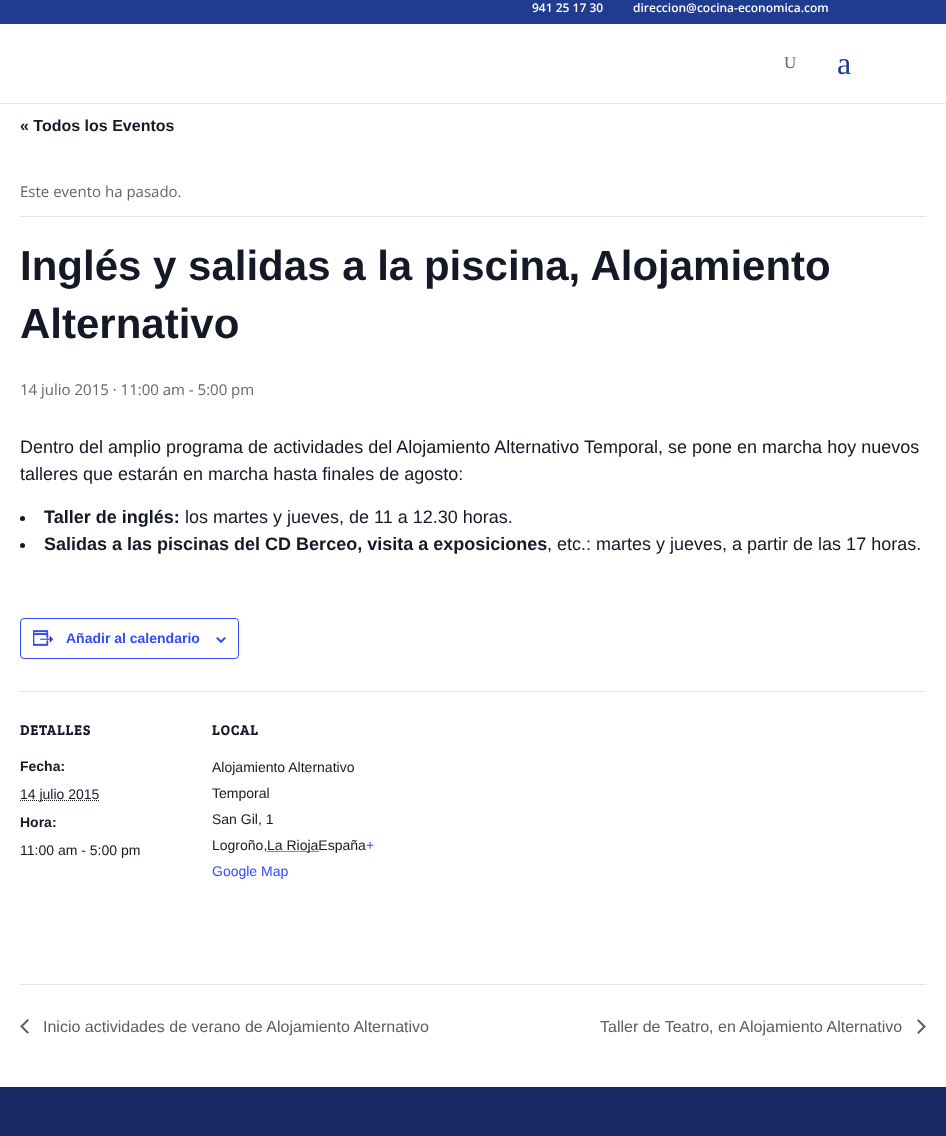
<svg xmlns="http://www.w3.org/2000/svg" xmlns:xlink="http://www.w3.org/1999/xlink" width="946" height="1136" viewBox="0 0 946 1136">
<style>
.cls-1{font:600 12px Open Sans;fill:#ffffff}
.cls-2{font:17px Liberation Serif;fill:#666666}
.cls-3{font:32px Liberation Serif;fill:#203c90}
.cls-4{font:bold 16px Liberation Sans;fill:#141827}
.cls-5{font:15px Open Sans;fill:#666666}
.cls-6{font:bold 42px Liberation Sans;fill:#141827}
.cls-7{font:18px Liberation Sans;fill:#141827}
.cls-8{font:bold 18px Liberation Sans;fill:#141827}
.cls-9{font:bold 14px Liberation Sans;fill:#334aff}
.cls-10{font:bold 14px Bree Serif;letter-spacing:1px;fill:#141827}
.cls-11{font:bold 14px Liberation Sans;fill:#141827}
.cls-12{font:14px Liberation Sans;fill:#141827}
.cls-13{font:14px Liberation Sans;fill:#334aff}
.cls-14{font:16px Liberation Sans;fill:#5d5d5d}
</style>
<rect width="100%" height="100%" fill="#ffffff"/>
<rect fill="#203c90" x="0" y="0" width="946" height="24"/>
<rect fill="#e6e6e6" x="0" y="103" width="946" height="1"/>
<rect fill="#e4e4e4" x="20" y="216" width="906" height="1"/>
<circle fill="#141827" cx="22.5" cy="518.5" r="2.5"/>
<circle fill="#141827" cx="22.5" cy="545.5" r="2.5"/>
<rect fill="none" stroke="#334aff" x="20.5" y="618.5" width="218" height="40" rx="3.5"/>
<image xlink:href="image0.png" x="33" y="630" width="21" height="16"/>
<image xlink:href="image1.png" x="216" y="637" width="10" height="6"/>
<rect fill="#e4e4e4" x="20" y="691" width="906" height="1"/>
<path fill="none" stroke="#141827" stroke-dasharray="1 1" d="M20 800.5H99.5"/>
<path fill="none" stroke="#141827" stroke-dasharray="1 1" d="M267.5 851.5H318.5"/>
<rect fill="#e4e4e4" x="20" y="984" width="906" height="1"/>
<image xlink:href="image2.png" x="20" y="1019" width="9" height="15"/>
<image xlink:href="image3.png" x="917" y="1019" width="9" height="15"/>
<rect fill="#162962" x="0" y="1087" width="946" height="49"/>
<text class="cls-1" x="532" y="12">941 25 17 30</text>
<text class="cls-1" x="633" y="12">direccion@cocina-economica.com</text>
<text class="cls-2" x="784" y="68">U</text>
<text class="cls-3" x="837" y="74">a</text>
<text class="cls-4" x="20" y="131">« Todos los Eventos</text>
<text class="cls-5" x="20" y="197">Este evento ha pasado.</text>
<text class="cls-6"><tspan x="20" y="280">Inglés y salidas a la piscina, Alojamiento</tspan><tspan x="20" y="338">Alternativo</tspan></text>
<text class="cls-5" x="20" y="395">14 julio 2015 · 11:00 am - 5:00 pm</text>
<text class="cls-7"><tspan x="20" y="453">Dentro del amplio programa de actividades del Alojamiento Alternativo Temporal, se pone en marcha hoy nuevos</tspan><tspan x="20" y="480">talleres que estarán en marcha hasta finales de agosto:</tspan></text>
<text class="cls-8" x="44" y="523">Taller de inglés:</text>
<text class="cls-7" x="185" y="523">los martes y jueves, de 11 a 12.30 horas.</text>
<text class="cls-8" x="44" y="550">Salidas a las piscinas del CD Berceo, visita a exposiciones</text>
<text class="cls-7" x="547" y="550">, etc.: martes y jueves, a partir de las 17 horas.</text>
<text class="cls-9" x="66" y="643">Añadir al calendario</text>
<text class="cls-10" x="20" y="735">DETALLES</text>
<text class="cls-11" x="20" y="771">Fecha:</text>
<text class="cls-12" x="20" y="799">14 julio 2015</text>
<text class="cls-11" x="20" y="827">Hora:</text>
<text class="cls-12" x="20" y="855">11:00 am - 5:00 pm</text>
<text class="cls-10" x="212" y="735">LOCAL</text>
<text class="cls-12"><tspan x="212" y="772">Alojamiento Alternativo</tspan><tspan x="212" y="798">Temporal</tspan><tspan x="212" y="824">San Gil, 1</tspan><tspan x="212" y="850">Logroño,</tspan></text>
<text class="cls-12" x="267" y="850">La RiojaEspaña</text>
<text class="cls-13" x="366" y="850">+</text>
<text class="cls-13" x="212" y="876">Google Map</text>
<text class="cls-14" x="43" y="1032">Inicio actividades de verano de Alojamiento Alternativo</text>
<text class="cls-14" x="600" y="1032">Taller de Teatro, en Alojamiento Alternativo</text>
</svg>
